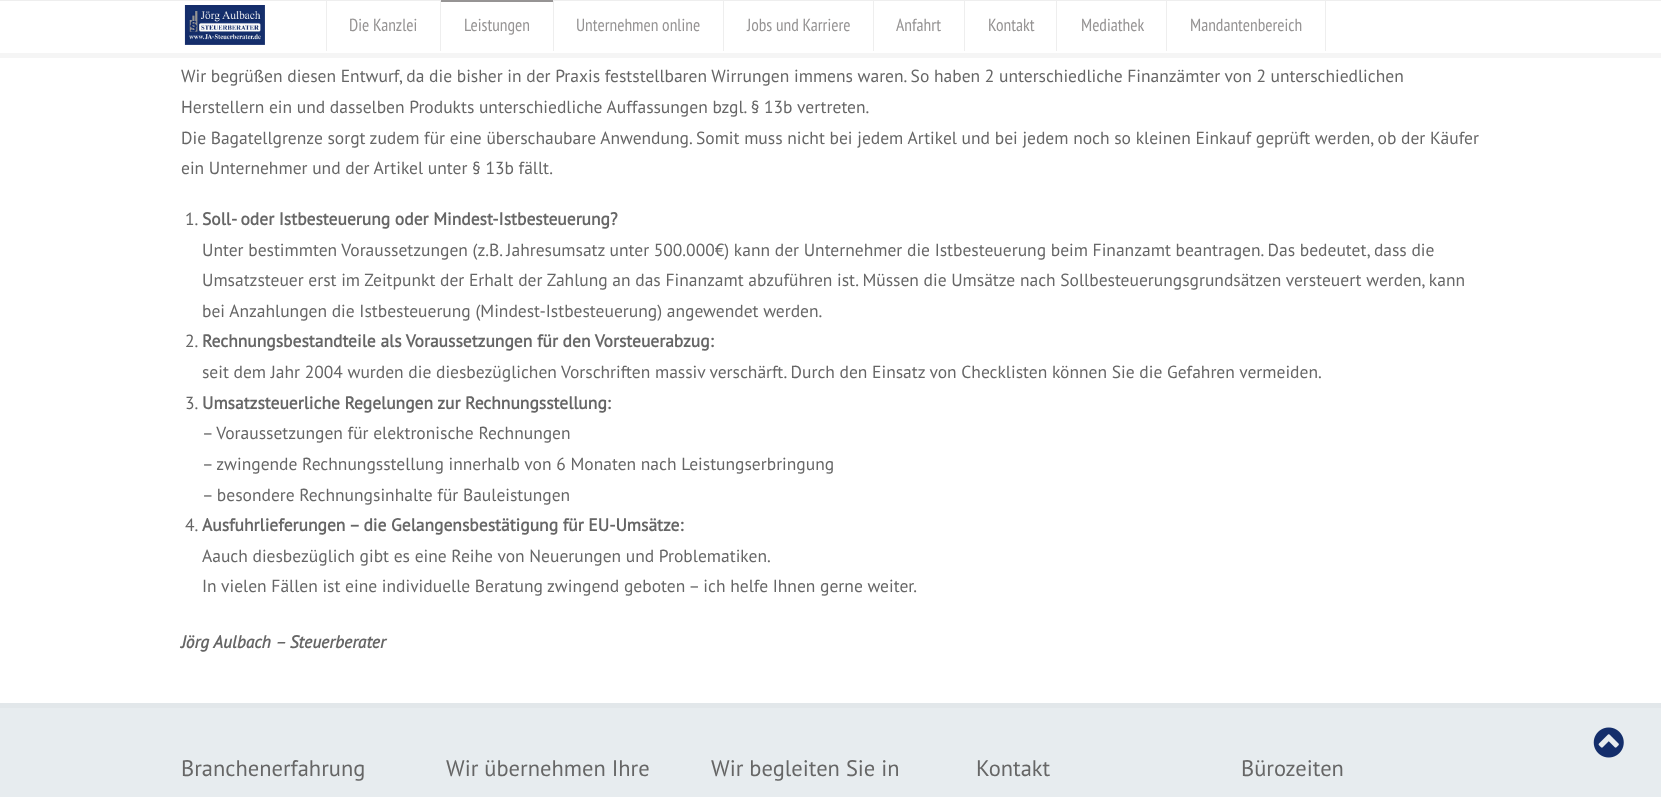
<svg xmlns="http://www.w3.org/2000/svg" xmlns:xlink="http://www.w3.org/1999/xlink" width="1661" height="797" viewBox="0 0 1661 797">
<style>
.cls-1{font:17.5px PT Sans Narrow;fill:#969494}
.cls-2{font:17.5px PT Sans;fill:#666666}
.cls-3{font:bold 17.5px PT Sans;fill:#666666}
.cls-4{font:italic bold 17.5px PT Sans;fill:#666666}
.cls-5{font:22.5px PT Sans;fill:#666666}
</style>
<rect width="100%" height="100%" fill="#ffffff"/>
<rect fill="#f5f5f5" x="0" y="53" width="1661" height="5"/>
<rect fill="#eeeeee" x="0" y="0" width="1661" height="1"/>
<image xlink:href="image0.png" x="184" y="5" width="81" height="40"/>
<rect fill="#eeeeee" x="440" y="1" width="1" height="50"/>
<rect fill="#eeeeee" x="326" y="1" width="1" height="50"/>
<rect fill="#eeeeee" x="553" y="1" width="1" height="50"/>
<rect fill="#969494" x="441" y="0" width="112" height="2"/>
<rect fill="#eeeeee" x="723" y="1" width="1" height="50"/>
<rect fill="#eeeeee" x="873" y="1" width="1" height="50"/>
<rect fill="#eeeeee" x="964" y="1" width="1" height="50"/>
<rect fill="#eeeeee" x="1056" y="1" width="1" height="50"/>
<rect fill="#eeeeee" x="1166" y="1" width="1" height="50"/>
<rect fill="#eeeeee" x="1325" y="1" width="1" height="50"/>
<rect fill="#e7ecef" x="0" y="708" width="1661" height="89"/>
<rect fill="#e2e7ea" x="0" y="703" width="1661" height="5"/>
<image xlink:href="image1.png" x="1593" y="727" width="31" height="31"/>
<text class="cls-1" x="349" y="31">Die Kanzlei</text>
<text class="cls-1" x="464" y="31">Leistungen</text>
<text class="cls-1" x="576" y="31">Unternehmen online</text>
<text class="cls-1" x="747" y="31">Jobs und Karriere</text>
<text class="cls-1" x="896" y="31">Anfahrt</text>
<text class="cls-1" x="988" y="31">Kontakt</text>
<text class="cls-1" x="1081" y="31">Mediathek</text>
<text class="cls-1" x="1190" y="31">Mandantenbereich</text>
<text class="cls-2"><tspan x="181" y="82">Wir begrüßen diesen Entwurf, da die bisher in der Praxis feststellbaren Wirrungen immens waren. So haben 2 unterschiedliche Finanzämter von 2 unterschiedlichen</tspan><tspan x="181" y="113">Herstellern ein und dasselben Produkts unterschiedliche Auffassungen bzgl. § 13b vertreten.</tspan><tspan x="181" y="144">Die Bagatellgrenze sorgt zudem für eine überschaubare Anwendung. Somit muss nicht bei jedem Artikel und bei jedem noch so kleinen Einkauf geprüft werden, ob der Käufer</tspan><tspan x="181" y="174">ein Unternehmer und der Artikel unter § 13b fällt.</tspan></text>
<text class="cls-2" x="185" y="225">1.</text>
<text class="cls-3" x="202" y="225">Soll- oder Istbesteuerung oder Mindest-Istbesteuerung?</text>
<text class="cls-2"><tspan x="202" y="256">Unter bestimmten Voraussetzungen (z.B. Jahresumsatz unter 500.000€) kann der Unternehmer die Istbesteuerung beim Finanzamt beantragen. Das bedeutet, dass die</tspan><tspan x="202" y="286">Umsatzsteuer erst im Zeitpunkt der Erhalt der Zahlung an das Finanzamt abzuführen ist. Müssen die Umsätze nach Sollbesteuerungsgrundsätzen versteuert werden, kann</tspan><tspan x="202" y="317">bei Anzahlungen die Istbesteuerung (Mindest-Istbesteuerung) angewendet werden.</tspan></text>
<text class="cls-2" x="185" y="347">2.</text>
<text class="cls-3" x="202" y="347">Rechnungsbestandteile als Voraussetzungen für den Vorsteuerabzug:</text>
<text class="cls-2" x="202" y="378">seit dem Jahr 2004 wurden die diesbezüglichen Vorschriften massiv verschärft. Durch den Einsatz von Checklisten können Sie die Gefahren vermeiden.</text>
<text class="cls-2" x="185" y="409">3.</text>
<text class="cls-3" x="202" y="409">Umsatzsteuerliche Regelungen zur Rechnungsstellung:</text>
<text class="cls-2"><tspan x="202" y="439">– Voraussetzungen für elektronische Rechnungen</tspan><tspan x="202" y="470">– zwingende Rechnungsstellung innerhalb von 6 Monaten nach Leistungserbringung</tspan><tspan x="202" y="501">– besondere Rechnungsinhalte für Bauleistungen</tspan></text>
<text class="cls-2" x="185" y="531">4.</text>
<text class="cls-3" x="202" y="531">Ausfuhrlieferungen – die Gelangensbestätigung für EU-Umsätze:</text>
<text class="cls-2"><tspan x="202" y="562">Aauch diesbezüglich gibt es eine Reihe von Neuerungen und Problematiken.</tspan><tspan x="202" y="592">In vielen Fällen ist eine individuelle Beratung zwingend geboten – ich helfe Ihnen gerne weiter.</tspan></text>
<text class="cls-4" x="181" y="648">Jörg Aulbach – Steuerberater</text>
<text class="cls-5" x="181" y="776">Branchenerfahrung</text>
<text class="cls-5" x="446" y="776">Wir übernehmen Ihre</text>
<text class="cls-5" x="711" y="776">Wir begleiten Sie in</text>
<text class="cls-5" x="976" y="776">Kontakt</text>
<text class="cls-5" x="1241" y="776">Bürozeiten</text>
</svg>
